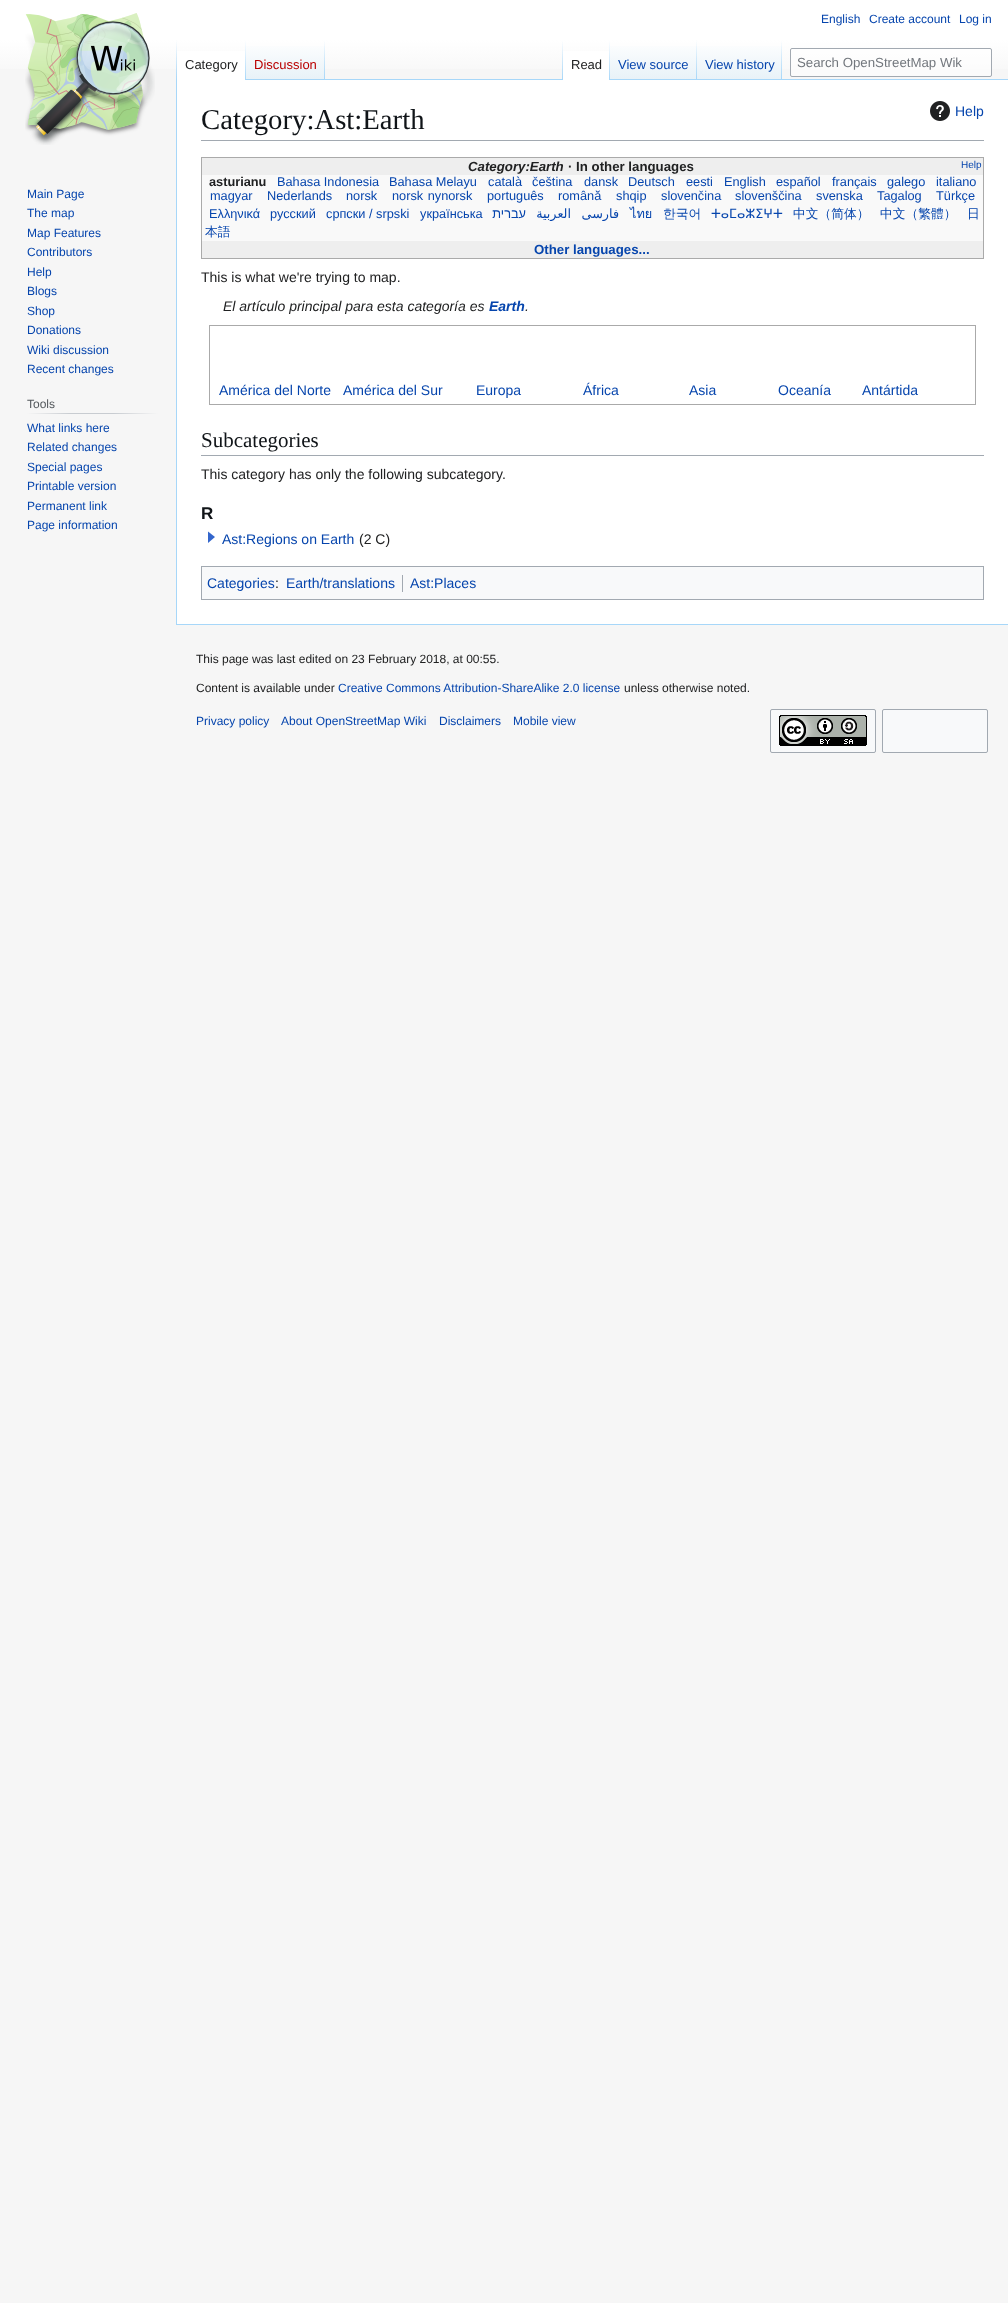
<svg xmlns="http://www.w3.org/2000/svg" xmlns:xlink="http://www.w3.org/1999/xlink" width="1008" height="2303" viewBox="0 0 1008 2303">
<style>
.cls-1{font:12px Liberation Sans;fill:#0645ad}
.cls-2{font:13px Liberation Sans;fill:#202122}
.cls-3{font:13px Liberation Sans;fill:#ba0000}
.cls-4{font:13px Liberation Sans;fill:#0645ad}
.cls-5{font:13.25px Liberation Sans;fill:#72777d}
.cls-6{font:12px Liberation Sans;fill:#54595d}
.cls-7{font:28.75px Liberation Serif;fill:#101418}
.cls-8{font:14px Liberation Sans;fill:#0645ad}
.cls-9{font:italic bold 13.25px Liberation Sans;fill:#202122}
.cls-10{font:bold 13.25px Liberation Sans;fill:#202122}
.cls-11{font:10px Liberation Sans;fill:#0645ad}
.cls-12{font:bold 12.75px Liberation Sans;fill:#202122}
.cls-13{font:12.75px Liberation Sans;fill:#0645ad}
.cls-14{font:12.75px Liberation Sans;direction:rtl;fill:#0645ad}
.cls-15{font:12.75px DejaVu Sans;direction:rtl;fill:#0645ad}
.cls-16{font:12.75px Loma;fill:#0645ad}
.cls-17{font:500 12.75px WenQuanYi Zen Hei;fill:#0645ad}
.cls-18{font:12.75px DejaVu Sans;fill:#0645ad}
.cls-19{font:bold 13.25px Liberation Sans;fill:#0645ad}
.cls-20{font:14px Liberation Sans;fill:#202122}
.cls-21{font:italic 14px Liberation Sans;fill:#202122}
.cls-22{font:italic bold 14px Liberation Sans;fill:#0645ad}
.cls-23{font:21px Liberation Serif;fill:#101418}
.cls-24{font:bold 17px Liberation Sans;fill:#101418}
.cls-25{font:12px Liberation Sans;fill:#202122}
</style>
<defs>
<linearGradient id="g1" gradientUnits="userSpaceOnUse" x1="504" y1="0" x2="504" y2="80"><stop offset="0.5" stop-color="#ffffff"/><stop offset="1" stop-color="#f6f6f6"/></linearGradient>
<linearGradient id="g2" gradientUnits="userSpaceOnUse" x1="177" y1="40" x2="177" y2="80"><stop offset="0" stop-color="#a7d7f9" stop-opacity="0"/><stop offset="1" stop-color="#a7d7f9"/></linearGradient>
<linearGradient id="g3" gradientUnits="userSpaceOnUse" x1="246" y1="40" x2="246" y2="80"><stop offset="0" stop-color="#ffffff"/><stop offset="1" stop-color="#a7d7f9"/></linearGradient>
<linearGradient id="g4" gradientUnits="userSpaceOnUse" x1="286" y1="80" x2="286" y2="40"><stop offset="0" stop-color="#77c1f6"/><stop offset="0.03" stop-color="#e8f2f8"/><stop offset="1" stop-color="#ffffff"/></linearGradient>
<linearGradient id="g5" gradientUnits="userSpaceOnUse" x1="325" y1="40" x2="325" y2="80"><stop offset="0" stop-color="#a7d7f9" stop-opacity="0"/><stop offset="1" stop-color="#a7d7f9"/></linearGradient>
<linearGradient id="g6" gradientUnits="userSpaceOnUse" x1="563" y1="40" x2="563" y2="80"><stop offset="0" stop-color="#a7d7f9" stop-opacity="0"/><stop offset="1" stop-color="#a7d7f9"/></linearGradient>
<linearGradient id="g7" gradientUnits="userSpaceOnUse" x1="610" y1="40" x2="610" y2="80"><stop offset="0" stop-color="#ffffff"/><stop offset="1" stop-color="#a7d7f9"/></linearGradient>
<linearGradient id="g8" gradientUnits="userSpaceOnUse" x1="654" y1="80" x2="654" y2="40"><stop offset="0" stop-color="#77c1f6"/><stop offset="0.03" stop-color="#e8f2f8"/><stop offset="1" stop-color="#ffffff"/></linearGradient>
<linearGradient id="g9" gradientUnits="userSpaceOnUse" x1="697" y1="40" x2="697" y2="80"><stop offset="0" stop-color="#a7d7f9" stop-opacity="0"/><stop offset="1" stop-color="#a7d7f9"/></linearGradient>
<linearGradient id="g10" gradientUnits="userSpaceOnUse" x1="740" y1="80" x2="740" y2="40"><stop offset="0" stop-color="#77c1f6"/><stop offset="0.03" stop-color="#e8f2f8"/><stop offset="1" stop-color="#ffffff"/></linearGradient>
<linearGradient id="g11" gradientUnits="userSpaceOnUse" x1="782" y1="40" x2="782" y2="80"><stop offset="0" stop-color="#a7d7f9" stop-opacity="0"/><stop offset="1" stop-color="#a7d7f9"/></linearGradient>
<linearGradient id="g12" gradientUnits="userSpaceOnUse" x1="27" y1="414" x2="158" y2="414"><stop offset="0" stop-color="#f6f6f6"/><stop offset="0.33" stop-color="#c8ccd1"/><stop offset="0.66" stop-color="#c8ccd1"/><stop offset="1" stop-color="#f6f6f6"/></linearGradient>
</defs>
<rect width="100%" height="100%" fill="#f6f6f6"/>
<rect fill="url(#g1)" x="0" y="0" width="1008" height="69"/>
<rect fill="#a7d7f9" x="176" y="624" width="832" height="1"/>
<rect fill="#a7d7f9" x="176" y="79" width="1" height="546"/>
<rect fill="url(#g2)" x="176" y="40" width="1" height="40"/>
<rect fill="#ffffff" x="177" y="51" width="68" height="29"/>
<rect fill="url(#g3)" x="245" y="40" width="1" height="40"/>
<rect fill="url(#g4)" x="246" y="46" width="79" height="34"/>
<rect fill="url(#g5)" x="324" y="40" width="1" height="40"/>
<rect fill="#a7d7f9" x="325" y="79" width="683" height="1"/>
<rect fill="url(#g6)" x="562" y="40" width="1" height="40"/>
<rect fill="#ffffff" x="563" y="51" width="46" height="29"/>
<rect fill="url(#g7)" x="609" y="40" width="1" height="40"/>
<rect fill="url(#g8)" x="610" y="46" width="87" height="33"/>
<rect fill="url(#g9)" x="696" y="40" width="1" height="40"/>
<rect fill="url(#g10)" x="697" y="46" width="85" height="33"/>
<rect fill="url(#g11)" x="781" y="40" width="1" height="40"/>
<rect fill="#ffffff" fill-opacity="0.5" stroke="#a2a9b1" x="790.5" y="48.5" width="201" height="28" rx="1.5"/>
<image xlink:href="image0.png" x="25" y="13" width="130" height="132"/>
<rect fill="url(#g12)" x="27" y="413" width="131" height="1"/>
<rect fill="#ffffff" x="177" y="80" width="831" height="544"/>
<rect fill="#a2a9b1" x="201" y="140" width="783" height="1"/>
<image xlink:href="image1.png" x="930" y="101" width="20" height="20"/>
<rect fill="none" stroke="#aaaaaa" x="201.5" y="157.5" width="782" height="101"/>
<rect fill="#eeeeee" x="202" y="158" width="781" height="17"/>
<rect fill="#f9f9f9" x="202" y="175" width="781" height="66"/>
<rect fill="#eeeeee" x="202" y="241" width="781" height="17"/>
<rect fill="none" stroke="#aaaaaa" x="209.5" y="325.5" width="766" height="79"/>
<rect fill="#a2a9b1" x="201" y="455" width="783" height="1"/>
<path fill="#3366cc" d="M215 537L208 543V531.5Z"/>
<rect fill="#f8f9fa" stroke="#a2a9b1" x="201.5" y="566.5" width="782" height="33"/>
<rect fill="#a2a9b1" x="402" y="575" width="1" height="17"/>
<rect fill="#f8f9fa" stroke="#a2a9b1" x="770.5" y="709.5" width="105" height="43" rx="1.5"/>
<image xlink:href="image2.png" x="779" y="715" width="88" height="31"/>
<rect fill="#f8f9fa" stroke="#a2a9b1" x="882.5" y="709.5" width="105" height="43" rx="1.5"/>
<text class="cls-1" x="821" y="23">English</text>
<text class="cls-1" x="869" y="23">Create account</text>
<text class="cls-1" x="959" y="23">Log in</text>
<text class="cls-2" x="185" y="69">Category</text>
<text class="cls-3" x="254" y="69">Discussion</text>
<text class="cls-2" x="571" y="69">Read</text>
<text class="cls-4" x="618" y="69">View source</text>
<text class="cls-4" x="705" y="69">View history</text>
<text class="cls-5" x="797" y="67">Search OpenStreetMap Wik</text>
<text class="cls-1"><tspan x="27" y="198">Main Page</tspan><tspan x="27" y="217">The map</tspan><tspan x="27" y="237">Map Features</tspan><tspan x="27" y="256">Contributors</tspan><tspan x="27" y="276">Help</tspan><tspan x="27" y="295">Blogs</tspan><tspan x="27" y="315">Shop</tspan><tspan x="27" y="334">Donations</tspan><tspan x="27" y="354">Wiki discussion</tspan><tspan x="27" y="373">Recent changes</tspan></text>
<text class="cls-6" x="27" y="408">Tools</text>
<text class="cls-1"><tspan x="27" y="432">What links here</tspan><tspan x="27" y="451">Related changes</tspan><tspan x="27" y="471">Special pages</tspan><tspan x="27" y="490">Printable version</tspan><tspan x="27" y="510">Permanent link</tspan><tspan x="27" y="529">Page information</tspan></text>
<text class="cls-7" x="201" y="129">Category:Ast:Earth</text>
<text class="cls-8" x="955" y="116">Help</text>
<text class="cls-9" x="468" y="171">Category:Earth</text>
<text class="cls-10" x="568" y="171">· In other languages</text>
<text class="cls-11" x="961" y="168">Help</text>
<text class="cls-12" x="209" y="186">asturianu</text>
<text class="cls-13" x="277" y="186">Bahasa Indonesia</text>
<text class="cls-13" x="389" y="186">Bahasa Melayu</text>
<text class="cls-13" x="488" y="186">català</text>
<text class="cls-13" x="532" y="186">čeština</text>
<text class="cls-13" x="584" y="186">dansk</text>
<text class="cls-13" x="628" y="186">Deutsch</text>
<text class="cls-13" x="686" y="186">eesti</text>
<text class="cls-13" x="724" y="186">English</text>
<text class="cls-13" x="776" y="186">español</text>
<text class="cls-13" x="832" y="186">français</text>
<text class="cls-13" x="887" y="186">galego</text>
<text class="cls-13" x="936" y="186">italiano</text>
<text class="cls-13" x="210" y="200">magyar</text>
<text class="cls-13" x="267" y="200">Nederlands</text>
<text class="cls-13" x="346" y="200">norsk</text>
<text class="cls-13" x="392" y="200" word-spacing="1">norsk nynorsk</text>
<text class="cls-13" x="487" y="200">português</text>
<text class="cls-13" x="558" y="200">română</text>
<text class="cls-13" x="616" y="200">shqip</text>
<text class="cls-13" x="661" y="200">slovenčina</text>
<text class="cls-13" x="735" y="200">slovenščina</text>
<text class="cls-13" x="816" y="200">svenska</text>
<text class="cls-13" x="877" y="200">Tagalog</text>
<text class="cls-13" x="936" y="200">Türkçe</text>
<text class="cls-13" x="209" y="218">Ελληνικά</text>
<text class="cls-13" x="270" y="218">русский</text>
<text class="cls-13" x="326" y="218">српски / srpski</text>
<text class="cls-13" x="420" y="218">українська</text>
<text class="cls-14" x="526" y="218">עברית</text>
<text class="cls-15" x="571" y="218">العربية</text>
<text class="cls-15" x="619" y="218">فارسی</text>
<text class="cls-16" x="630" y="218">ไทย</text>
<text class="cls-17" x="663" y="218">한국어</text>
<text class="cls-18" x="711" y="218">ⵜⴰⵎⴰⵣⵉⵖⵜ</text>
<text class="cls-17" x="793" y="218">中文（简体）</text>
<text class="cls-17" x="880" y="218">中文（繁體）</text>
<text class="cls-17" x="967" y="218">日</text>
<text class="cls-17" x="205" y="236">本語</text>
<text class="cls-19" x="534" y="254">Other languages...</text>
<text class="cls-20" x="201" y="282">This is what we're trying to map.</text>
<text class="cls-21" x="223" y="311">El artículo principal para esta categoría es</text>
<text class="cls-22" x="489" y="311">Earth</text>
<text class="cls-21" x="525" y="311">.</text>
<text class="cls-8" x="219" y="395">América del Norte</text>
<text class="cls-8" x="343" y="395">América del Sur</text>
<text class="cls-8" x="476" y="395">Europa</text>
<text class="cls-8" x="583" y="395">África</text>
<text class="cls-8" x="689" y="395">Asia</text>
<text class="cls-8" x="778" y="395">Oceanía</text>
<text class="cls-8" x="862" y="395">Antártida</text>
<text class="cls-23" x="201" y="447">Subcategories</text>
<text class="cls-20" x="201" y="479">This category has only the following subcategory.</text>
<text class="cls-24" x="201" y="519">R</text>
<text class="cls-8" x="222" y="544">Ast:Regions on Earth</text>
<text class="cls-20" x="359" y="544">(2 C)</text>
<text class="cls-8" x="207" y="588">Categories</text>
<text class="cls-20" x="275" y="588">:</text>
<text class="cls-8" x="286" y="588">Earth/translations</text>
<text class="cls-8" x="410" y="588">Ast:Places</text>
<text class="cls-25" x="196" y="663">This page was last edited on 23 February 2018, at 00:55.</text>
<text class="cls-25" x="196" y="692">Content is available under</text>
<text class="cls-1" x="338" y="692">Creative Commons Attribution-ShareAlike 2.0 license</text>
<text class="cls-25" x="624" y="692">unless otherwise noted.</text>
<text class="cls-1" x="196" y="725">Privacy policy</text>
<text class="cls-1" x="281" y="725">About OpenStreetMap Wiki</text>
<text class="cls-1" x="439" y="725">Disclaimers</text>
<text class="cls-1" x="513" y="725">Mobile view</text>
</svg>
